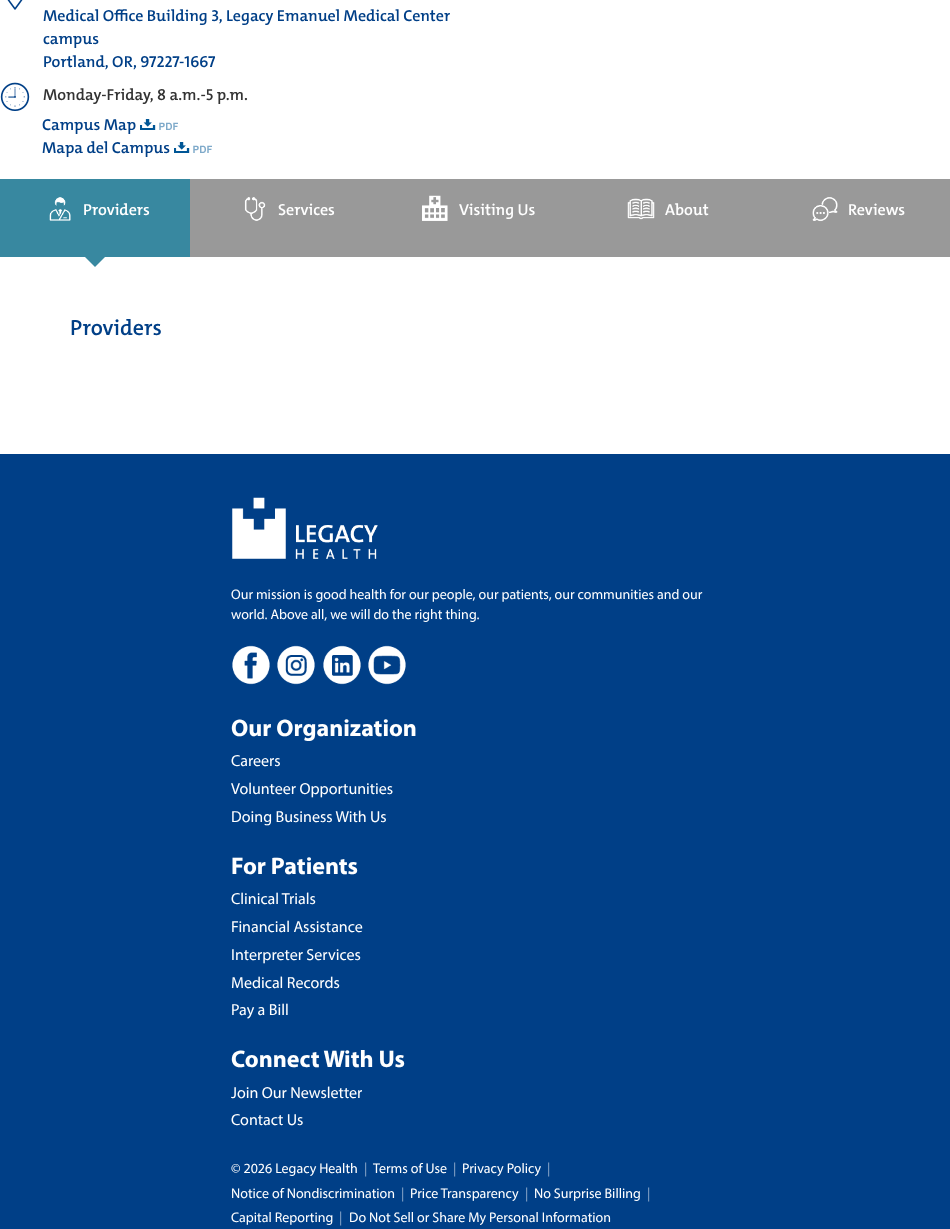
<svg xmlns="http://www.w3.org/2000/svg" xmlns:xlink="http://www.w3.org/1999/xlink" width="950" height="1229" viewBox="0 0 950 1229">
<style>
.cls-1{font:600 16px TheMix;fill:#003f87}
.cls-2{font:600 16px TheMix;fill:#333333}
.cls-3{font:600 16px TheMix;fill:#ffffff}
.cls-4{font:600 22px TheMix;fill:#003f87}
.cls-5{font:14px Myriad;fill:#ffffff}
.cls-6{font:bold 24px Myriad;fill:#ffffff}
.cls-7{font:16px Myriad;fill:#ffffff}
.cls-8{font:14px Myriad;fill:#8ca9c9}
</style>
<rect width="100%" height="100%" fill="#ffffff"/>
<image xlink:href="image0.png" x="7" y="0" width="16" height="10"/>
<image xlink:href="image1.png" x="0" y="82" width="30" height="29"/>
<image xlink:href="image2.png" x="140" y="119" width="38" height="11"/>
<image xlink:href="image2.png" x="174" y="142" width="38" height="11"/>
<rect fill="#3888a0" x="0" y="179" width="190" height="78"/>
<image xlink:href="image3.png" x="49" y="197" width="22" height="24"/>
<path fill="#3888a0" d="M85 257H105L95 267Z"/>
<rect fill="#999999" x="190" y="179" width="760" height="78"/>
<image xlink:href="image4.png" x="244" y="197" width="22" height="24"/>
<image xlink:href="image5.png" x="422" y="195" width="26" height="26"/>
<image xlink:href="image6.png" x="627" y="198" width="28" height="22"/>
<image xlink:href="image7.png" x="812" y="197" width="26" height="25"/>
<rect fill="#003f87" x="0" y="454" width="950" height="775"/>
<image xlink:href="image8.png" x="232" y="497" width="146" height="62"/>
<image xlink:href="image9.png" x="232" y="645" width="38" height="40"/>
<image xlink:href="image10.png" x="277" y="645" width="38" height="40"/>
<image xlink:href="image11.png" x="323" y="645" width="38" height="40"/>
<image xlink:href="image12.png" x="368" y="645" width="38" height="40"/>
<text class="cls-1"><tspan x="43" y="21">Medical Office Building 3, Legacy Emanuel Medical Center</tspan><tspan x="43" y="44">campus</tspan><tspan x="43" y="67">Portland, OR, 97227-1667</tspan></text>
<text class="cls-2" x="43" y="100">Monday-Friday, 8 a.m.-5 p.m.</text>
<text class="cls-1"><tspan x="42" y="130">Campus Map</tspan><tspan x="42" y="153">Mapa del Campus</tspan></text>
<text class="cls-3" x="83" y="215">Providers</text>
<text class="cls-3" x="278" y="215">Services</text>
<text class="cls-3" x="459" y="215">Visiting Us</text>
<text class="cls-3" x="665" y="215">About</text>
<text class="cls-3" x="848" y="215">Reviews</text>
<text class="cls-4" x="70" y="335">Providers</text>
<text class="cls-5"><tspan x="231" y="599">Our mission is good health for our people, our patients, our communities and our</tspan><tspan x="231" y="619">world. Above all, we will do the right thing.</tspan></text>
<text class="cls-6" x="231" y="736">Our Organization</text>
<text class="cls-7"><tspan x="231" y="766">Careers</tspan><tspan x="231" y="794">Volunteer Opportunities</tspan><tspan x="231" y="822">Doing Business With Us</tspan></text>
<text class="cls-6" x="231" y="874">For Patients</text>
<text class="cls-7"><tspan x="231" y="904">Clinical Trials</tspan><tspan x="231" y="932">Financial Assistance</tspan><tspan x="231" y="960">Interpreter Services</tspan><tspan x="231" y="988">Medical Records</tspan><tspan x="231" y="1015">Pay a Bill</tspan></text>
<text class="cls-6" x="231" y="1067">Connect With Us</text>
<text class="cls-7"><tspan x="231" y="1098">Join Our Newsletter</tspan><tspan x="231" y="1125">Contact Us</tspan></text>
<text class="cls-5" x="231" y="1173">© 2026 Legacy Health</text>
<text class="cls-8" x="364" y="1173">|</text>
<text class="cls-5" x="373" y="1173">Terms of Use</text>
<text class="cls-8" x="453" y="1173">|</text>
<text class="cls-5" x="462" y="1173">Privacy Policy</text>
<text class="cls-8" x="547" y="1173">|</text>
<text class="cls-5" x="231" y="1198">Notice of Nondiscrimination</text>
<text class="cls-8" x="401" y="1198">|</text>
<text class="cls-5" x="410" y="1198">Price Transparency</text>
<text class="cls-8" x="525" y="1198">|</text>
<text class="cls-5" x="534" y="1198">No Surprise Billing</text>
<text class="cls-8" x="647" y="1198">|</text>
<text class="cls-5" x="231" y="1222">Capital Reporting</text>
<text class="cls-8" x="339" y="1222">|</text>
<text class="cls-5" x="349" y="1222">Do Not Sell or Share My Personal Information</text>
</svg>
